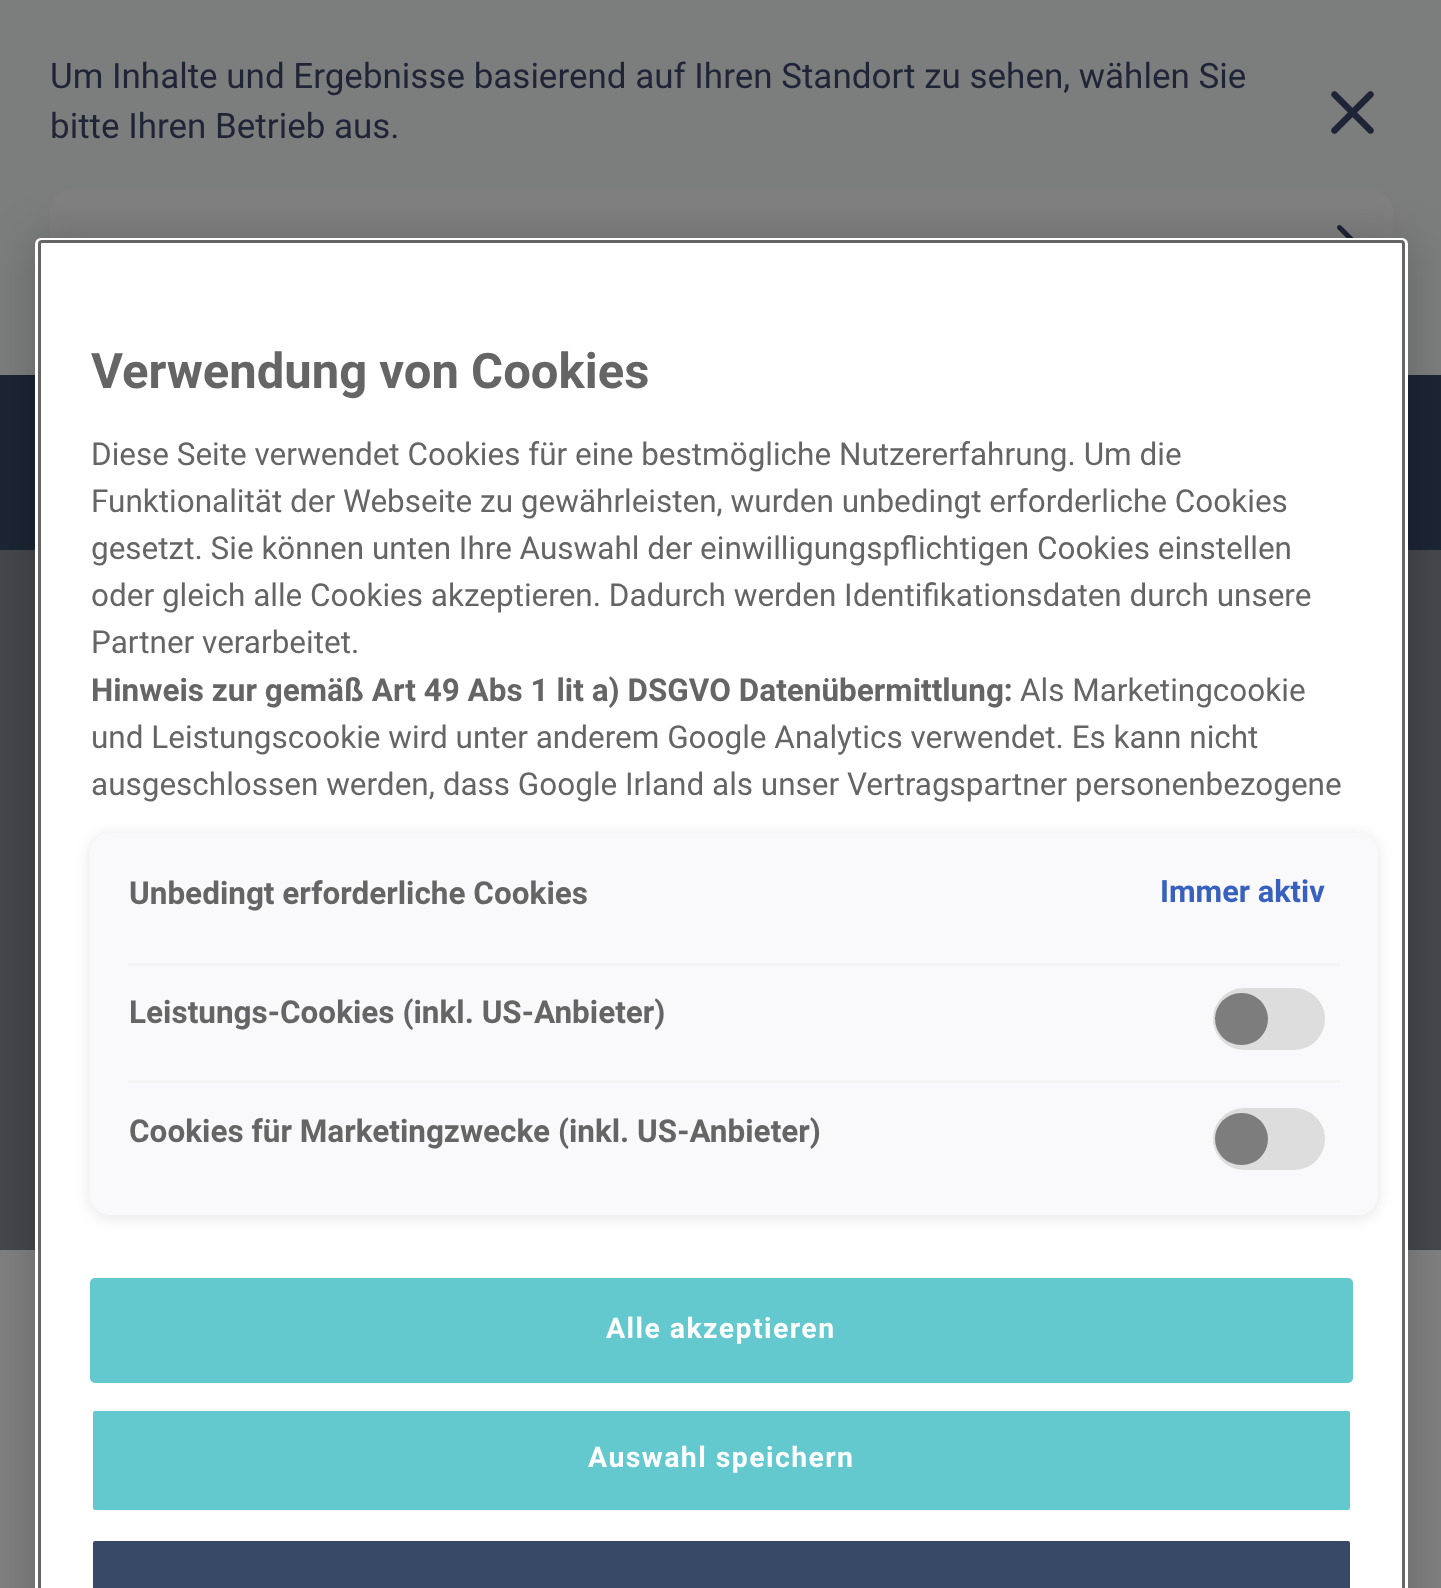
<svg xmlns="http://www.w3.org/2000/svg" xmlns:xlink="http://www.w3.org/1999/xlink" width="1441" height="1588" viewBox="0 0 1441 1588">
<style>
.cls-1{font:35px Roboto;fill:#1f2537}
.cls-2{font:bold 49px Roboto;fill:#656565}
.cls-3{font:31.5px Roboto;fill:#656565}
.cls-4{font:bold 31.5px Roboto;fill:#656565}
.cls-5{font:bold 30.75px Roboto;fill:#3860be}
.cls-6{font:bold 28.5px Roboto;letter-spacing:1.4px;fill:#ffffff}
</style>
<rect width="100%" height="100%" fill="#808080"/>
<rect fill="#7c7d7d" x="0" y="0" width="1441" height="375"/>
<image xlink:href="image0.png" x="1331" y="91" width="43" height="43"/>
<rect fill="#808080" x="50" y="190" width="1343" height="110" rx="20"/>
<image xlink:href="image1.png" x="1337" y="225" width="17" height="13"/>
<rect fill="#1c2534" x="0" y="375" width="1441" height="175"/>
<rect fill="#45474b" x="0" y="550" width="1441" height="700"/>
<rect fill="#000000" fill-opacity="0.2" filter="blur(22.5px)" x="35" y="238" width="1373" height="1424" rx="6"/>
<rect fill="#ffffff" x="35" y="238" width="1373" height="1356" rx="6"/>
<rect fill="none" stroke="#656565" stroke-width="3" x="39.5" y="241.5" width="1364" height="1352" rx="2.5"/>
<rect fill="#000000" fill-opacity="0.1" filter="blur(7.5px)" x="90" y="835" width="1288" height="383" rx="20"/>
<rect fill="#f9f9fc" x="90" y="833" width="1288" height="382" rx="20"/>
<rect fill="#f4f4f4" x="128" y="963" width="1212" height="3"/>
<rect fill="#f4f4f4" x="128" y="1080" width="1212" height="3"/>
<path fill="#dddddd" d="M1244 988H1294C1311 988 1325 1002 1325 1019C1325 1036 1311 1050 1294 1050H1244C1227 1050 1213 1036 1213 1019C1213 1002 1227 988 1244 988Z"/>
<rect fill="#7d7d7d" x="1215" y="993" width="53" height="52" rx="26"/>
<path fill="#dddddd" d="M1244 1108H1294C1311 1108 1325 1122 1325 1139C1325 1156 1311 1170 1294 1170H1244C1227 1170 1213 1156 1213 1139C1213 1122 1227 1108 1244 1108Z"/>
<rect fill="#7d7d7d" x="1215" y="1113" width="53" height="52" rx="26"/>
<rect fill="#64c8cf" stroke="#64c8cf" stroke-width="3" x="91.5" y="1279.5" width="1260" height="102" rx="3.5"/>
<rect fill="#64c8cf" stroke="#ffffff" stroke-width="3" x="91.5" y="1409.5" width="1260" height="102" rx="3.5"/>
<rect fill="#384967" stroke="#ffffff" stroke-width="3" x="91.5" y="1539.5" width="1260" height="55" rx="3.5"/>
<text class="cls-1"><tspan x="50" y="88">Um Inhalte und Ergebnisse basierend auf Ihren Standort zu sehen, wählen Sie</tspan><tspan x="50" y="138">bitte Ihren Betrieb aus.</tspan></text>
<text class="cls-2" x="91" y="388">Verwendung von Cookies</text>
<text class="cls-3"><tspan x="91" y="465">Diese Seite verwendet Cookies für eine bestmögliche Nutzererfahrung. Um die</tspan><tspan x="91" y="512">Funktionalität der Webseite zu gewährleisten, wurden unbedingt erforderliche Cookies</tspan><tspan x="91" y="559">gesetzt. Sie können unten Ihre Auswahl der einwilligungspflichtigen Cookies einstellen</tspan><tspan x="91" y="606">oder gleich alle Cookies akzeptieren. Dadurch werden Identifikationsdaten durch unsere</tspan><tspan x="91" y="653">Partner verarbeitet.</tspan></text>
<text class="cls-4" x="91" y="701">Hinweis zur gemäß Art 49 Abs 1 lit a) DSGVO Datenübermittlung:</text>
<text class="cls-3" x="1020" y="701">Als Marketingcookie</text>
<text class="cls-3"><tspan x="91" y="748">und Leistungscookie wird unter anderem Google Analytics verwendet. Es kann nicht</tspan><tspan x="91" y="795">ausgeschlossen werden, dass Google Irland als unser Vertragspartner personenbezogene</tspan></text>
<text class="cls-4" x="129" y="904">Unbedingt erforderliche Cookies</text>
<text class="cls-5" x="1160" y="902">Immer aktiv</text>
<text class="cls-4" x="129" y="1023">Leistungs-Cookies (inkl. US-Anbieter)</text>
<text class="cls-4" x="129" y="1142">Cookies für Marketingzwecke (inkl. US-Anbieter)</text>
<text class="cls-6" x="606" y="1338">Alle akzeptieren</text>
<text class="cls-6" x="588" y="1467">Auswahl speichern</text>
</svg>
